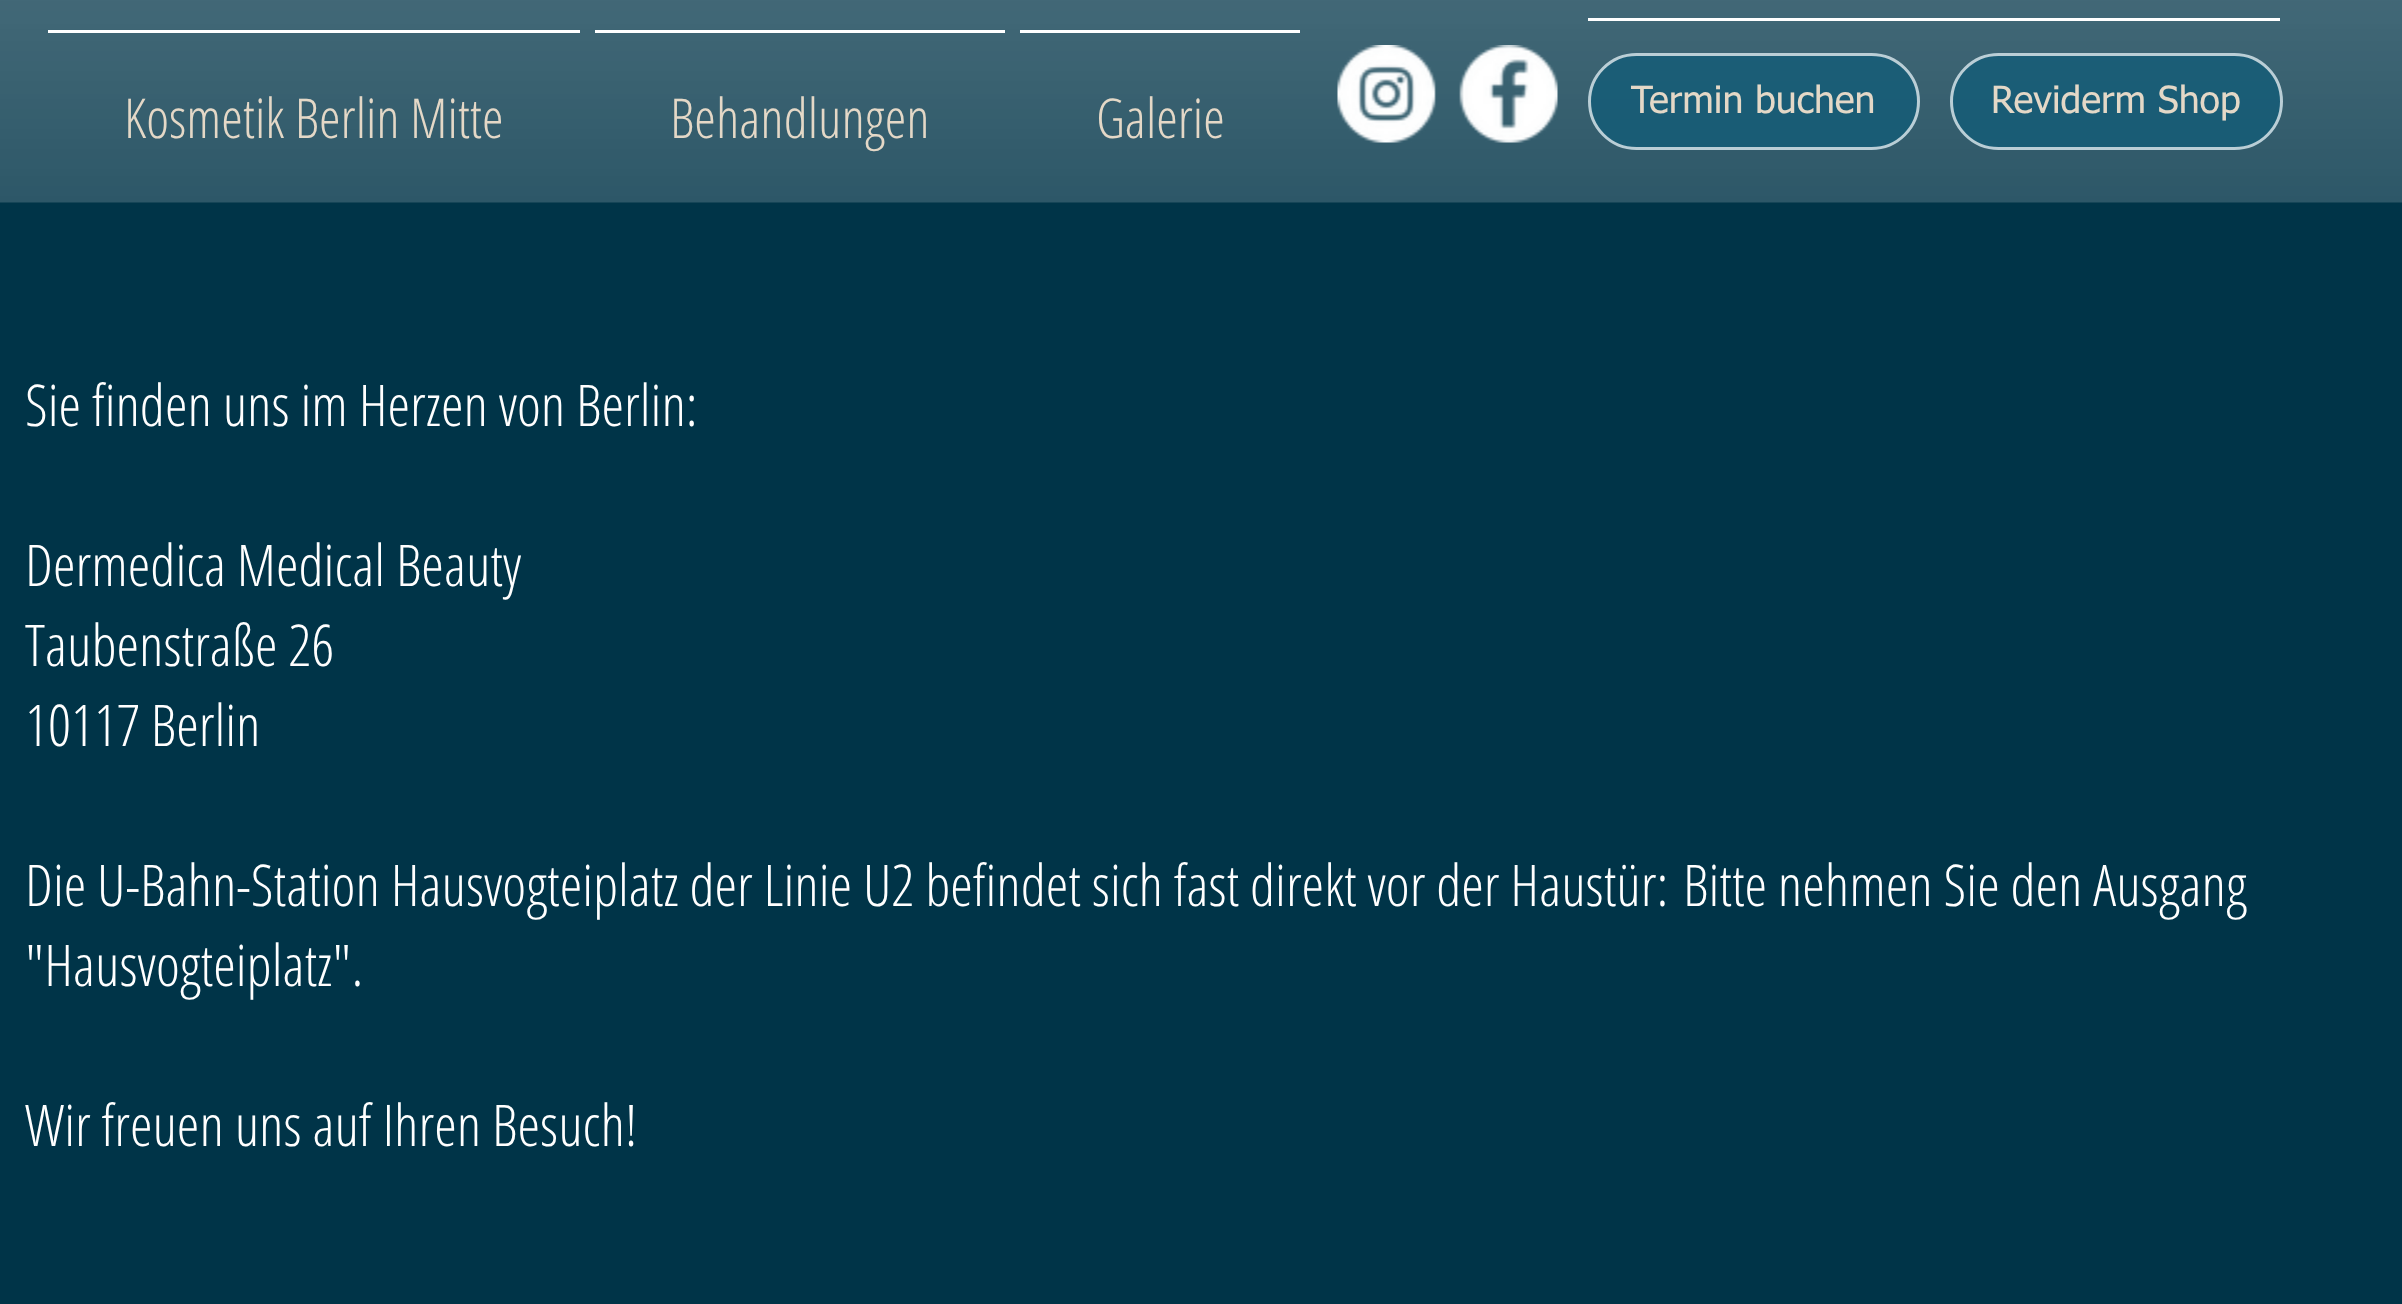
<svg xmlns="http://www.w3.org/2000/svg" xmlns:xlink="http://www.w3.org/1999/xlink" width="2402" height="1304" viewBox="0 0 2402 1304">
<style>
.cls-1{font:300 55px Open Sans Condensed;fill:#e4d8c7}
.cls-2{font:37.5px tahoma;fill:#e4d8c7}
.cls-3{font:300 57.5px Open Sans Condensed;fill:#ffffff}
</style>
<rect width="100%" height="100%" fill="#003448"/>
<image xlink:href="image0.png" x="0" y="0" width="2402" height="203"/>
<rect fill="#ffffff" x="1588" y="18" width="692" height="3"/>
<rect fill="#ffffff" x="48" y="30" width="532" height="3"/>
<rect fill="#ffffff" x="595" y="30" width="410" height="3"/>
<rect fill="#ffffff" x="1020" y="30" width="280" height="3"/>
<image xlink:href="image1.png" x="1337" y="45" width="99" height="98"/>
<image xlink:href="image2.png" x="1459" y="45" width="99" height="98"/>
<rect fill="#105c78" fill-opacity="0.74" x="1588" y="53" width="332" height="97" rx="48.5"/>
<rect fill="none" stroke="#ffffff" stroke-opacity="0.7" stroke-width="3" x="1589.5" y="54.5" width="329" height="94" rx="47"/>
<rect fill="#105c78" fill-opacity="0.74" x="1950" y="53" width="333" height="97" rx="48.5"/>
<rect fill="none" stroke="#ffffff" stroke-opacity="0.7" stroke-width="3" x="1951.5" y="54.5" width="330" height="94" rx="47"/>
<text class="cls-1" x="124" y="138">Kosmetik Berlin Mitte</text>
<text class="cls-1" x="670" y="138">Behandlungen</text>
<text class="cls-1" x="1096" y="138">Galerie</text>
<text class="cls-2" x="1631" y="113">Termin buchen</text>
<text class="cls-2" x="1991" y="113">Reviderm Shop</text>
<text class="cls-3" x="25" y="426">Sie finden uns im Herzen von Berlin:</text>
<text class="cls-3"><tspan x="25" y="586">Dermedica Medical Beauty</tspan><tspan x="25" y="666">Taubenstraße 26</tspan><tspan x="25" y="746">10117 Berlin</tspan></text>
<text class="cls-3" x="25" y="906">Die U-Bahn-Station Hausvogteiplatz der Linie U2 befindet sich fast direkt vor der Haustür:</text>
<text class="cls-3" x="1683" y="906">Bitte nehmen Sie den Ausgang</text>
<text class="cls-3" x="25" y="986">"Hausvogteiplatz".</text>
<text class="cls-3" x="25" y="1146">Wir freuen uns auf Ihren Besuch!</text>
</svg>
